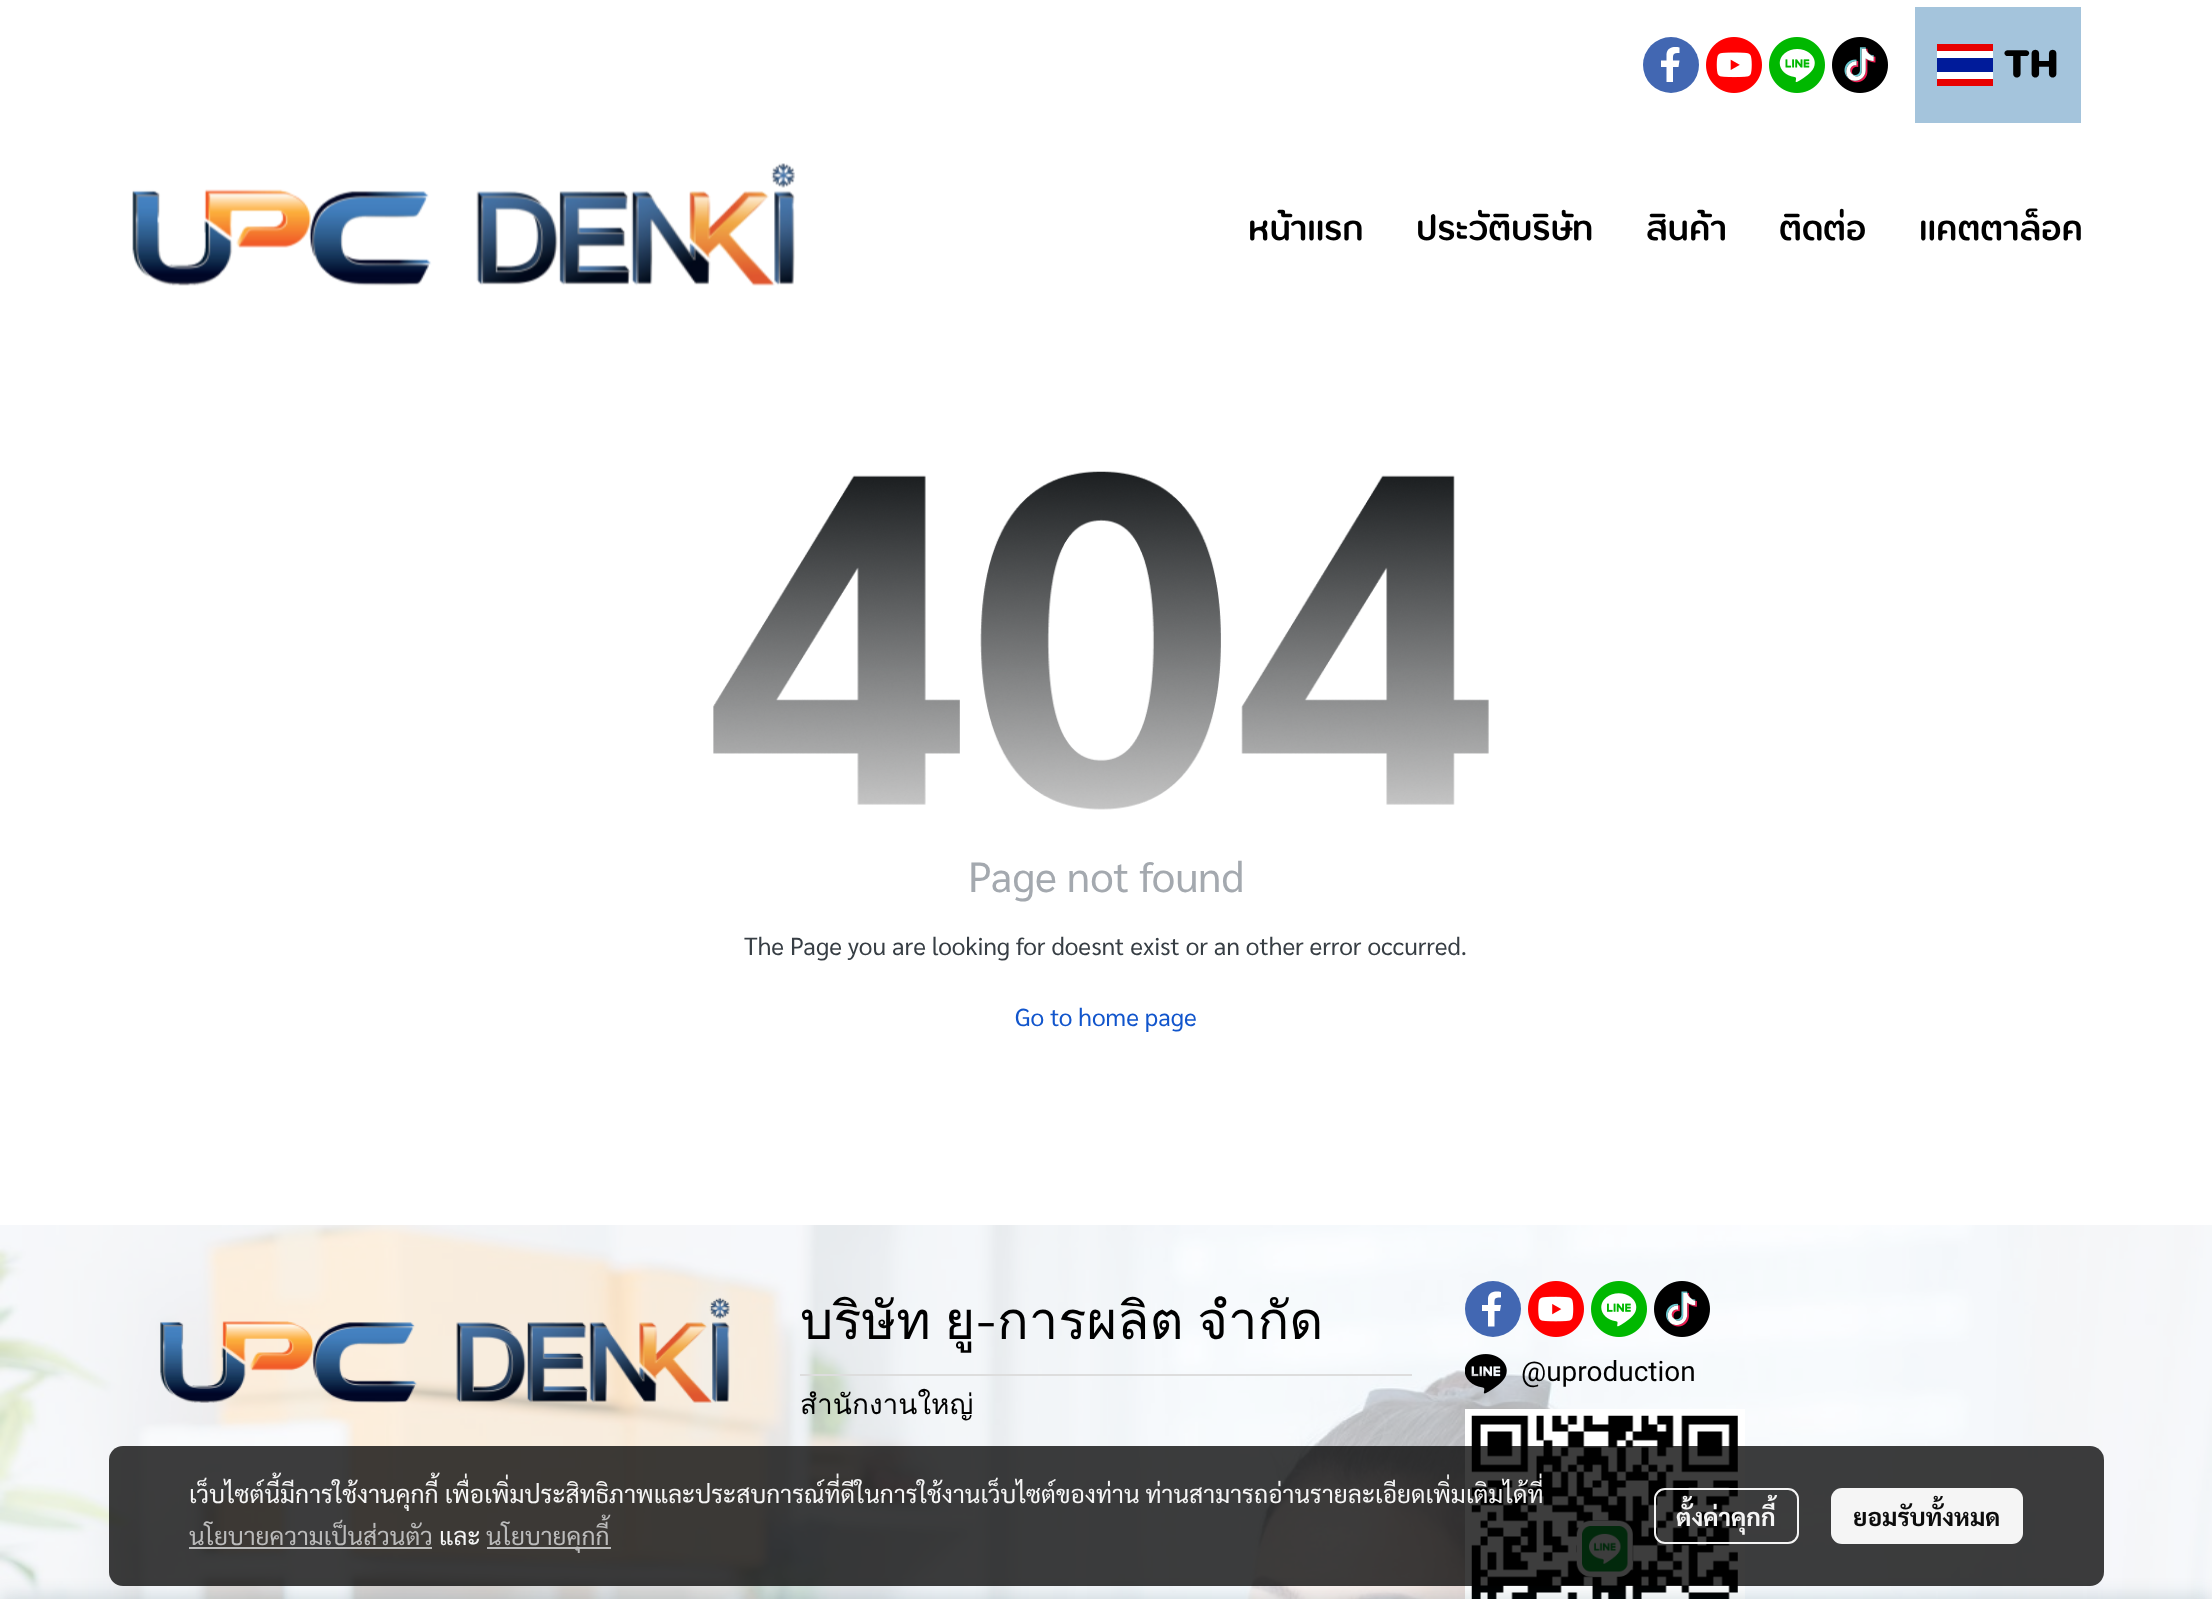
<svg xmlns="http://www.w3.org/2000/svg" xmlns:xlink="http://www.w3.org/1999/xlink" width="2212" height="1599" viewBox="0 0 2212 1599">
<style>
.cls-1{font:800 42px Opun;fill:#000000}
.cls-2{font:600 35px Opun;fill:#000000}
.cls-3{font:42px Sarabun;fill:#a4a9af}
.cls-4{font:24.5px Sarabun;fill:#373e44}
.cls-5{font:24.5px Sarabun;fill:#1155cc}
.cls-6{font:52.5px Loma;fill:#000000}
.cls-7{font:100 52.5px Raleway;fill:#000000}
.cls-8{font:28px Loma;fill:#000000}
.cls-9{font:28px Roboto;fill:#000000}
.cls-10{font:24.5px Sarabun;fill:#f5f5f5}
.cls-11{font:24.5px Sarabun;fill:#bbbbbb}
.cls-12{font:bold 24.5px Sarabun;fill:#f5f5f5}
.cls-13{font:bold 24.5px Sarabun;fill:#0c0c0c}
</style>
<rect width="100%" height="100%" fill="#ffffff"/>
<circle fill="#4267b2" cx="1671" cy="65" r="28"/>
<path fill="#ffffff" d="M1678.5 67H1673V82H1666.5V67H1661V60.5H1666.5V54C1667.5 47 1674 46.5 1679.5 47.5V53C1672.5 53 1673 54.5 1673 60.5H1679.5Z"/>
<image xlink:href="image0.png" x="1706" y="37" width="56" height="56"/>
<image xlink:href="image1.png" x="1769" y="37" width="56" height="56"/>
<image xlink:href="image2.png" x="1832" y="37" width="56" height="56"/>
<rect fill="#a4c4dc" x="1915" y="7" width="166" height="116"/>
<rect fill="#ffffff" x="1937" y="51" width="56" height="28"/>
<rect fill="#001b9a" x="1937" y="58" width="56" height="14"/>
<rect fill="#e70000" x="1937" y="44" width="56" height="7"/>
<rect fill="#e70000" x="1937" y="79" width="56" height="7"/>
<image xlink:href="image3.png" x="132" y="163" width="663" height="123"/>
<image xlink:href="image4.png" x="713" y="471" width="776" height="339"/>
<image xlink:href="image5.png" x="0" y="1225" width="2212" height="374"/>
<image xlink:href="image6.png" x="160" y="1297" width="570" height="106"/>
<rect fill="#dddddd" x="800" y="1374" width="612" height="2"/>
<circle fill="#4267b2" cx="1493" cy="1309" r="28"/>
<path fill="#ffffff" d="M1500 1311H1494.5V1326.5H1488V1311H1482V1305H1488V1298C1489 1291.5 1495.5 1291 1501 1292V1297.5C1494 1297.5 1494.5 1298.5 1494.5 1305H1501Z"/>
<image xlink:href="image7.png" x="1528" y="1281" width="56" height="56"/>
<image xlink:href="image8.png" x="1591" y="1281" width="56" height="56"/>
<image xlink:href="image9.png" x="1654" y="1281" width="56" height="56"/>
<image xlink:href="image10.png" x="1465" y="1354" width="42" height="40"/>
<rect fill="#ffffff" x="1465" y="1409" width="280" height="190"/>
<image xlink:href="image11.png" x="1471" y="1415" width="267" height="184"/>
<image xlink:href="image12.png" x="1576" y="1520" width="57" height="57"/>
<rect fill="#00354a" fill-opacity="0.15" filter="blur(9px)" x="0" y="1596" width="2212" height="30"/>
<rect fill="#000000" fill-opacity="0.76" x="109" y="1446" width="1995" height="140" rx="14"/>
<rect fill="#c2c2c2" fill-opacity="0.95" x="189" y="1547" width="243" height="2"/>
<rect fill="#bbbbbb" x="487" y="1547" width="124" height="2"/>
<rect fill="none" stroke="#ffffff" stroke-opacity="0.95" stroke-width="2" x="1655" y="1489" width="143" height="54" rx="10"/>
<rect fill="#f5f5f5" x="1831" y="1488" width="192" height="56" rx="11"/>
<text class="cls-1" x="2004" y="77">TH</text>
<text class="cls-2" x="1248" y="240">หน้าแรก</text>
<text class="cls-2" x="1416" y="240">ประวัติบริษัท</text>
<text class="cls-2" x="1646" y="240">สินค้า</text>
<text class="cls-2" x="1779" y="240">ติดต่อ</text>
<text class="cls-2" x="1919" y="240">แคตตาล็อค</text>
<text class="cls-3" x="968" y="892">Page not found</text>
<text class="cls-4" x="744" y="955">The Page you are looking for doesnt exist or an other error occurred.</text>
<text class="cls-5" x="1015" y="1026">Go to home page</text>
<text class="cls-6" x="800" y="1339" word-spacing="-4">บริษัท ยู</text>
<text class="cls-7" x="975" y="1339">-</text>
<text class="cls-6" x="997" y="1339" word-spacing="-4">การผลิต จำกัด</text>
<text class="cls-8" x="800" y="1414">สำนักงานใหญ่</text>
<text class="cls-9" x="1521" y="1381">@uproduction</text>
<text class="cls-10" x="189" y="1503">เว็บไซต์นี้มีการใช้งานคุกกี้ เพื่อเพิ่มประสิทธิภาพและประสบการณ์ที่ดีในการใช้งานเว็บไซต์ของท่าน ท่านสามารถอ่านรายละเอียดเพิ่มเติมได้ที่</text>
<text class="cls-11" x="189" y="1545">นโยบายความเป็นส่วนตัว</text>
<text class="cls-10" x="439" y="1545">และ</text>
<text class="cls-11" x="486" y="1545">นโยบายคุกกี้</text>
<text class="cls-12" x="1676" y="1526">ตั้งค่าคุกกี้</text>
<text class="cls-13" x="1853" y="1526">ยอมรับทั้งหมด</text>
</svg>
